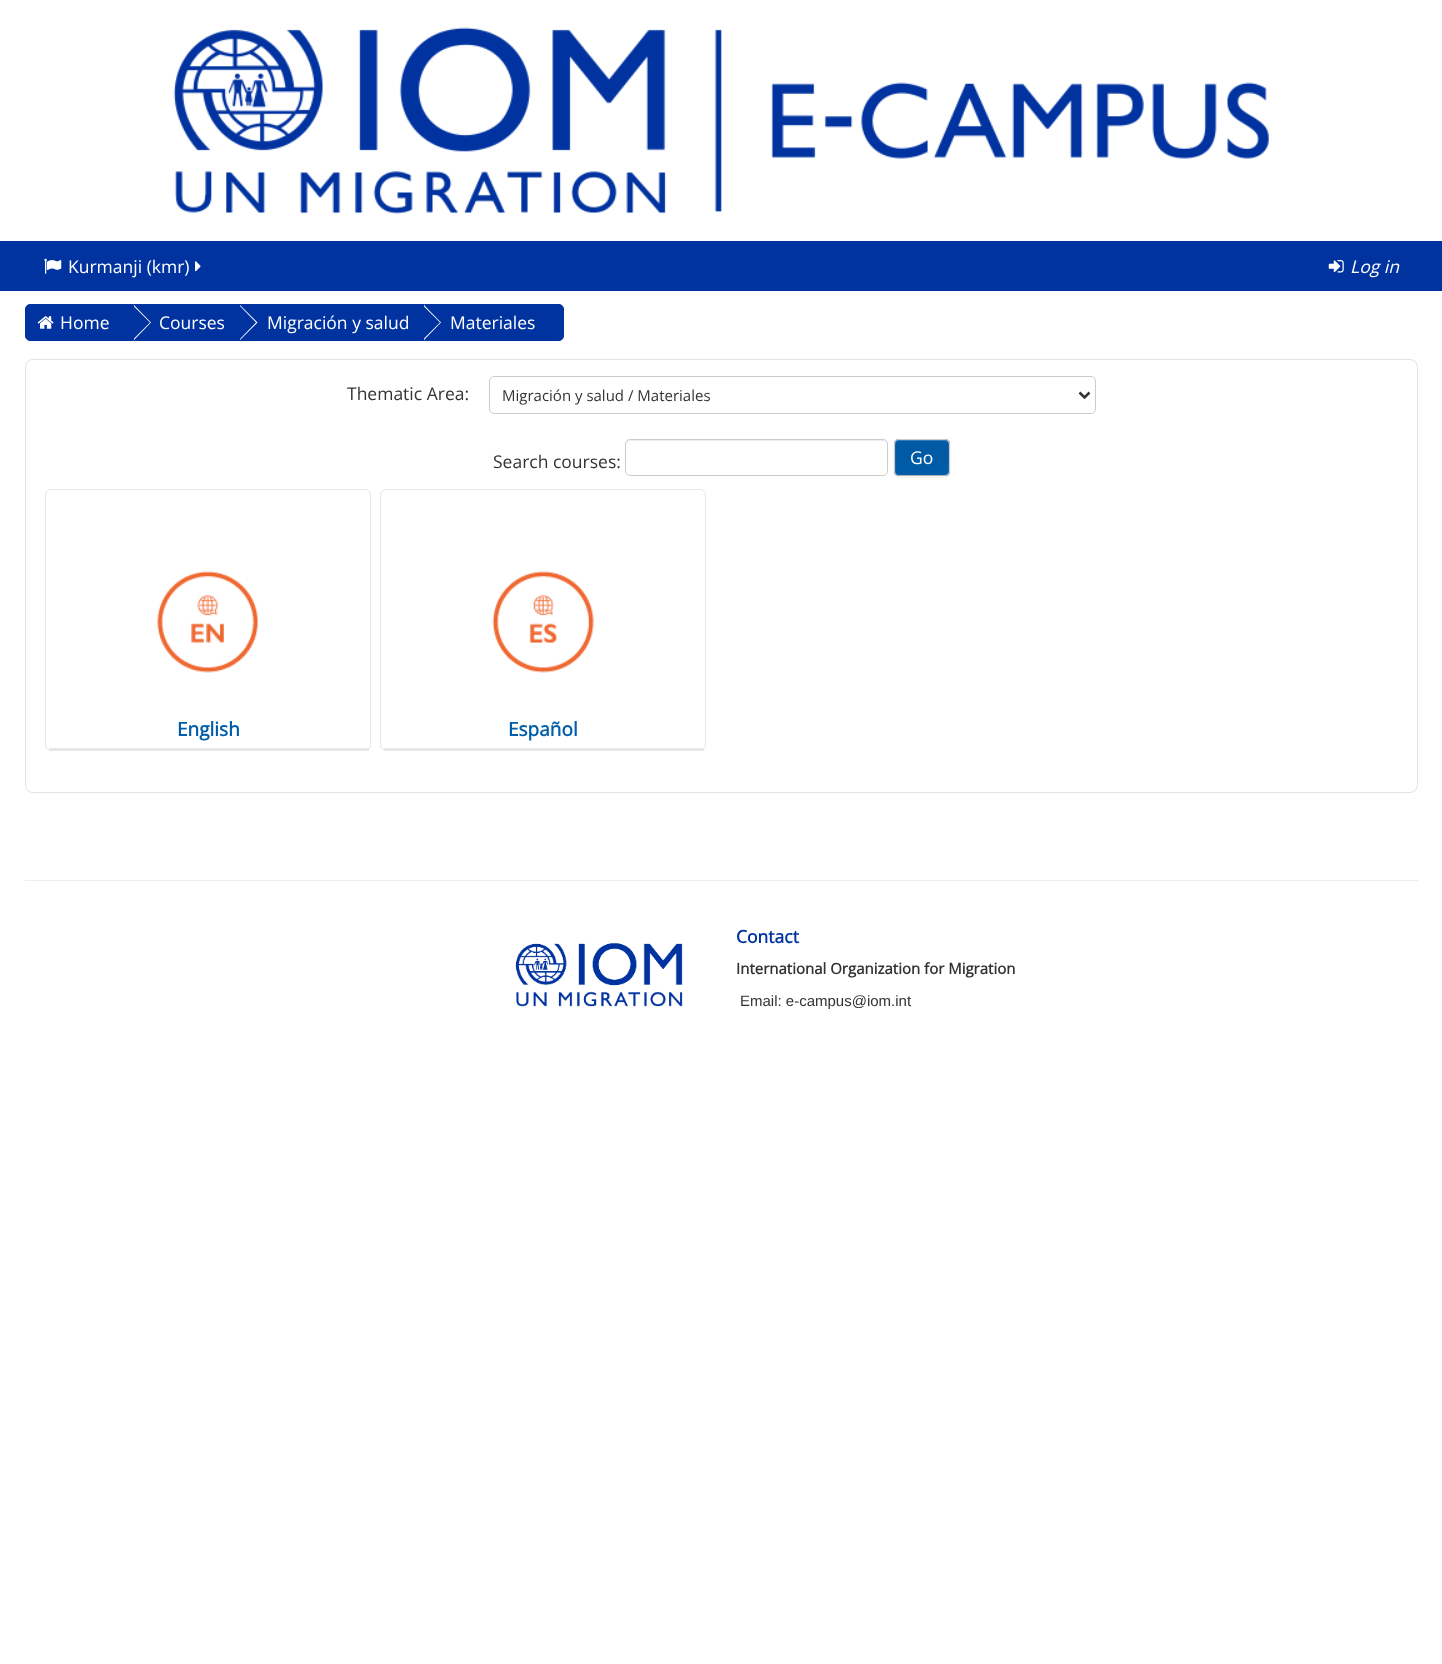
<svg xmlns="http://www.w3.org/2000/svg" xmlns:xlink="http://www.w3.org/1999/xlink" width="1442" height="1664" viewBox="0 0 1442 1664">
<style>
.cls-1{font:17.5px Open Sans;fill:#ffffff}
.cls-2{font:italic 17.5px Open Sans;fill:#ffffff}
.cls-3{font:17.5px Open Sans;fill:#333333}
.cls-4{font:15px Open Sans;fill:#333333}
.cls-5{font:bold 19px Open Sans;fill:#005daa}
.cls-6{font:bold 17.5px Open Sans;fill:#0033a0}
.cls-7{font:bold 15px Open Sans;fill:#333333}
.cls-8{font:15px Liberation Sans;fill:#333333}
</style>
<defs>
<clipPath id="clip1"><rect x="894" y="439" width="56" height="37" rx="5"/></clipPath>
<linearGradient id="g1" gradientUnits="userSpaceOnUse" x1="922" y1="475" x2="922" y2="440"><stop offset="0" stop-color="#005daa"/><stop offset="1" stop-color="#005499" stop-opacity="0.25"/></linearGradient>
</defs>
<rect width="100%" height="100%" fill="#ffffff"/>
<image xlink:href="image0.png" x="173" y="27" width="1096" height="187"/>
<rect fill="#0033a0" x="0" y="241" width="1442" height="50"/>
<image xlink:href="image1.png" x="44" y="258" width="18" height="16"/>
<image xlink:href="image2.png" x="195" y="261" width="6" height="11"/>
<image xlink:href="image3.png" x="1328" y="260" width="16" height="13"/>
<path fill="#0033a0" stroke="#0033a0" d="M30 304.5H133.5V340.5H30C27.5 340.5 25.5 338.5 25.5 336V309C25.5 306.5 27.5 304.5 30 304.5Z"/>
<rect fill="#0033a0" x="134" y="304" width="290" height="37"/>
<path fill="#ffffff" d="M134 340V305L151 322.5Z"/>
<path fill="#0033a0" d="M132.5 340V305L150 322.5Z"/>
<image xlink:href="image4.png" x="37" y="316" width="17" height="13"/>
<path fill="#ffffff" d="M240 340V305L257.5 322.5Z"/>
<path fill="#0033a0" d="M239 340V305L256 322.5Z"/>
<path fill="#0033a0" stroke="#0033a0" d="M424.5 304.5H559C561.5 304.5 563.5 306.5 563.5 309V336C563.5 338.5 561.5 340.5 559 340.5H424.5Z"/>
<path fill="#ffffff" d="M424 340V305L441 322.5Z"/>
<path fill="#0033a0" d="M422.5 340V305L440 322.5Z"/>
<rect fill="none" stroke="#e3e3e3" x="25.5" y="359.5" width="1392" height="433" rx="7.5"/>
<rect fill="none" stroke="#cccccc" x="489.5" y="376.5" width="606" height="37" rx="4.5"/>
<path fill="none" stroke="#333333" stroke-width="2.5" d="M1079.5 392.5L1084.5 397.5L1089.5 392.5"/>
<path fill="#ececec" d="M630 441H882C885 441 886 443 886 445V444C886 442 884 440 882 440H630C628 440 626 442 626 444V445C626 443 628 441 630 441Z"/>
<rect fill="none" stroke="#cccccc" x="625.5" y="439.5" width="262" height="36" rx="4.5"/>
<rect fill="#000000" fill-opacity="0.05" filter="blur(1px)" x="894" y="440" width="56" height="38" rx="5"/>
<rect fill="#005daa" x="894" y="439" width="56" height="37" rx="5"/>
<g clip-path="url(#clip1)">
<rect fill="url(#g1)" x="894" y="440" width="56" height="35"/>
</g>
<path fill="#337cb8" d="M899 441H945C947 441 949 443 949 445C949 438 942 440 937 440H907C902 440 895 438 895 445C895 443 897 441 899 441Z"/>
<path fill="none" stroke="#b3b3b3" stroke-width="1.2" d="M948 474.5C947.5 475 946 475.5 945 475.5H899C897.5 475.5 896.5 475 895.5 474.5"/>
<path fill="none" stroke="#cccccc" stroke-width="1.2" d="M895.5 474.5C895 473.5 894.5 472.5 894.5 471V444C894.5 442.5 895 441.5 895.5 440.5C896.5 440 897.5 439.5 899 439.5H945C946 439.5 947.5 440 948 440.5C949 441.5 949.5 442.5 949.5 444V471C949.5 472.5 949 473.5 948 474.5"/>
<rect fill="none" stroke="#e7e7e7" x="45.5" y="489.5" width="325" height="261" rx="5.5"/>
<rect fill="#e7e7e7" x="49" y="748" width="320" height="3"/>
<image xlink:href="image5.png" x="157" y="571" width="101" height="102"/>
<rect fill="none" stroke="#e7e7e7" x="380.5" y="489.5" width="325" height="261" rx="5.5"/>
<rect fill="#e7e7e7" x="384" y="748" width="320" height="3"/>
<image xlink:href="image6.png" x="492" y="571" width="102" height="102"/>
<rect fill="#eeeeee" x="25" y="880" width="1393" height="1"/>
<image xlink:href="image7.png" x="515" y="942" width="168" height="65"/>
<text class="cls-1" x="68" y="273">Kurmanji (kmr)</text>
<text class="cls-2" x="1350" y="273">Log in</text>
<text class="cls-1" x="60" y="329">Home</text>
<text class="cls-1" x="159" y="329">Courses</text>
<text class="cls-1" x="267" y="329">Migración y salud</text>
<text class="cls-1" x="450" y="329">Materiales</text>
<text class="cls-3" x="347" y="400">Thematic Area:</text>
<text class="cls-4" x="502" y="401">Migración y salud / Materiales</text>
<text class="cls-3" x="493" y="468">Search courses:</text>
<text class="cls-1" x="910" y="464">Go</text>
<text class="cls-5" x="177" y="736">English</text>
<text class="cls-5" x="508" y="736">Español</text>
<text class="cls-6" x="736" y="943">Contact</text>
<text class="cls-7" x="736" y="974">International Organization for Migration</text>
<text class="cls-8" x="740" y="1006">Email: e-campus@iom.int</text>
</svg>
